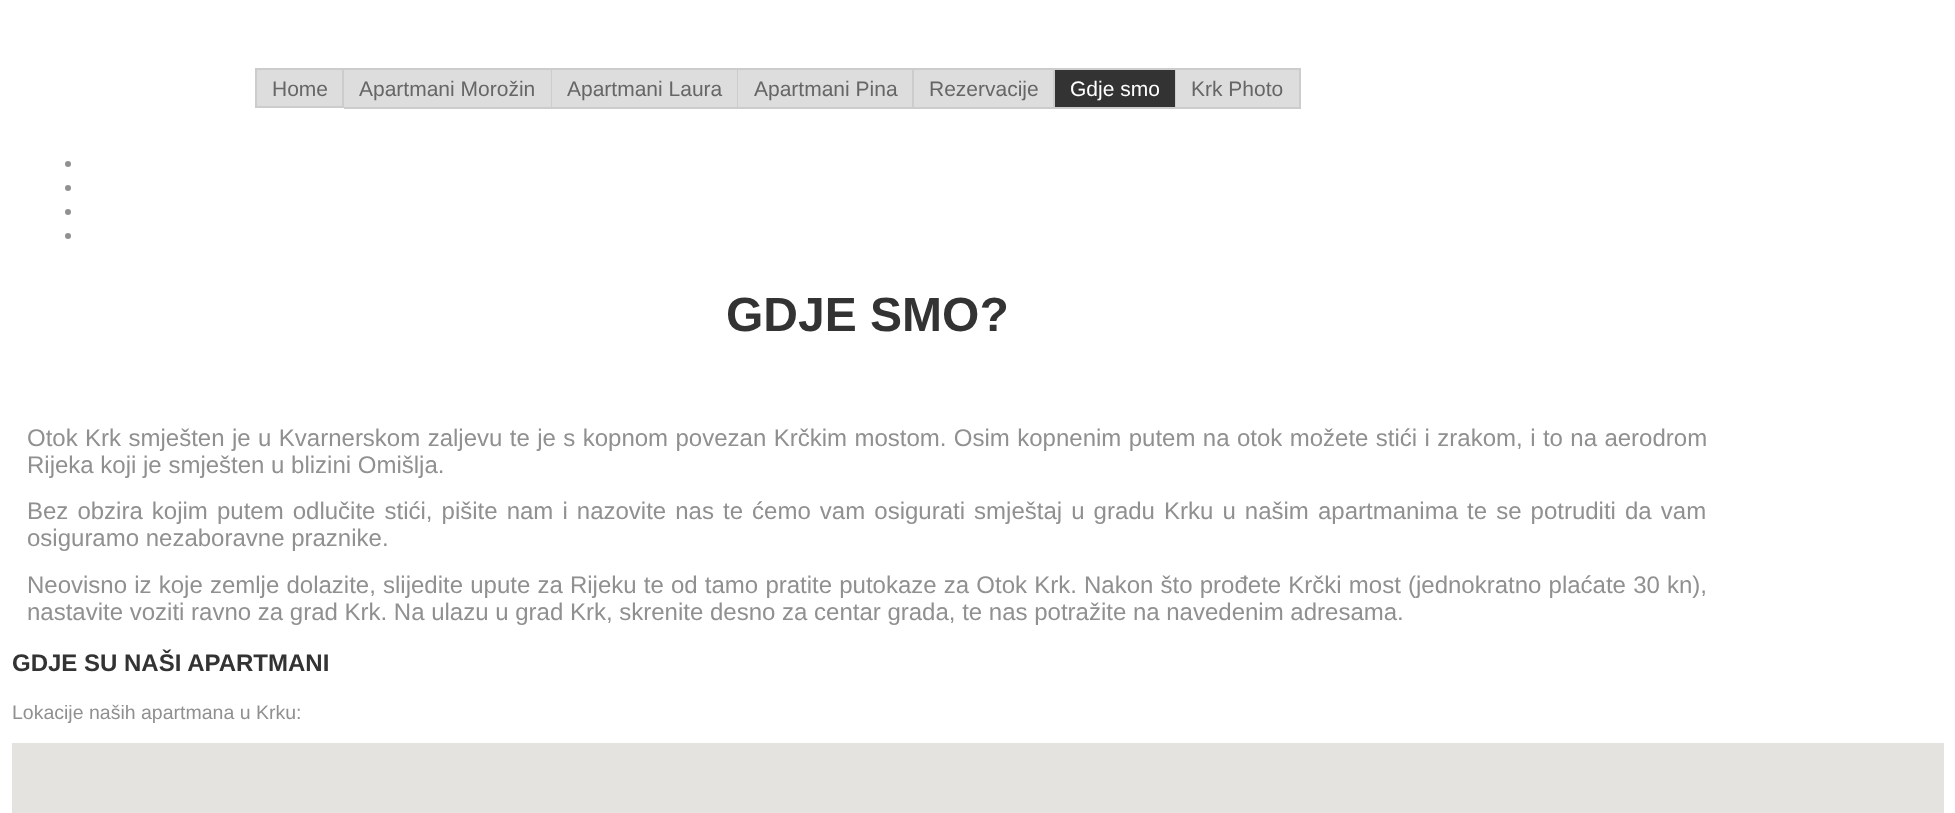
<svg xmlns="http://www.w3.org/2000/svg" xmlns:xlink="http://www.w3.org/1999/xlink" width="1955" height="813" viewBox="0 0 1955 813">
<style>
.cls-1{font:21px Liberation Sans;fill:#666666}
.cls-2{font:21px Liberation Sans;fill:#ffffff}
.cls-3{font:bold 48px Arimo;fill:#333333}
.cls-4{font:24px Arimo;fill:#909090}
.cls-5{font:bold 24px Arimo;fill:#333333}
.cls-6{font:19.5px Arimo;fill:#909090}
</style>
<rect width="100%" height="100%" fill="#ffffff"/>
<rect fill="#dddddd" stroke="#cccccc" stroke-width="2" x="256" y="69" width="87" height="38"/>
<rect fill="#dddddd" x="344" y="70" width="207" height="37"/>
<rect fill="#cccccc" x="344" y="68" width="957" height="2"/>
<rect fill="#cccccc" x="551" y="68" width="1" height="40"/>
<rect fill="#cccccc" x="344" y="107" width="208" height="2"/>
<rect fill="#dddddd" x="552" y="70" width="185" height="37"/>
<rect fill="#cccccc" x="737" y="68" width="1" height="40"/>
<rect fill="#cccccc" x="552" y="107" width="186" height="2"/>
<rect fill="#dddddd" x="738" y="70" width="174" height="37"/>
<rect fill="#cccccc" x="912" y="68" width="2" height="40"/>
<rect fill="#cccccc" x="738" y="107" width="176" height="2"/>
<rect fill="#dddddd" x="914" y="70" width="139" height="37"/>
<rect fill="#cccccc" x="1053" y="68" width="2" height="40"/>
<rect fill="#cccccc" x="914" y="107" width="141" height="2"/>
<rect fill="#333333" x="1055" y="70" width="120" height="37"/>
<rect fill="#cccccc" x="1175" y="68" width="1" height="40"/>
<rect fill="#cccccc" x="1055" y="107" width="121" height="2"/>
<rect fill="#dddddd" x="1176" y="70" width="123" height="37"/>
<rect fill="#cccccc" x="1299" y="68" width="2" height="40"/>
<rect fill="#cccccc" x="1176" y="107" width="125" height="2"/>
<circle fill="#909090" cx="68" cy="164" r="3"/>
<circle fill="#909090" cx="68" cy="188" r="3"/>
<circle fill="#909090" cx="68" cy="212" r="3"/>
<circle fill="#909090" cx="68" cy="236" r="3"/>
<rect fill="#e5e3df" x="12" y="743" width="1932" height="70"/>
<text class="cls-1" x="272" y="96">Home</text>
<text class="cls-1" x="359" y="96">Apartmani Morožin</text>
<text class="cls-1" x="567" y="96">Apartmani Laura</text>
<text class="cls-1" x="754" y="96">Apartmani Pina</text>
<text class="cls-1" x="929" y="96">Rezervacije</text>
<text class="cls-2" x="1070" y="96">Gdje smo</text>
<text class="cls-1" x="1191" y="96">Krk Photo</text>
<text class="cls-3" x="726" y="331">GDJE SMO?</text>
<text class="cls-4"><tspan x="27" y="446" word-spacing="0.75">Otok Krk smješten je u Kvarnerskom zaljevu te je s kopnom povezan Krčkim mostom. Osim kopnenim putem na otok možete stići i zrakom, i to na aerodrom</tspan><tspan x="27" y="473">Rijeka koji je smješten u blizini Omišlja.</tspan><tspan x="27" y="519" word-spacing="2.4">Bez obzira kojim putem odlučite stići, pišite nam i nazovite nas te ćemo vam osigurati smještaj u gradu Krku u našim apartmanima te se potruditi da vam</tspan><tspan x="27" y="546">osiguramo nezaboravne praznike.</tspan><tspan x="27" y="593" word-spacing="0.5">Neovisno iz koje zemlje dolazite, slijedite upute za Rijeku te od tamo pratite putokaze za Otok Krk. Nakon što prođete Krčki most (jednokratno plaćate 30 kn),</tspan><tspan x="27" y="620">nastavite voziti ravno za grad Krk. Na ulazu u grad Krk, skrenite desno za centar grada, te nas potražite na navedenim adresama.</tspan></text>
<text class="cls-5" x="12" y="671">GDJE SU NAŠI APARTMANI</text>
<text class="cls-6" x="12" y="719">Lokacije naših apartmana u Krku:</text>
</svg>
